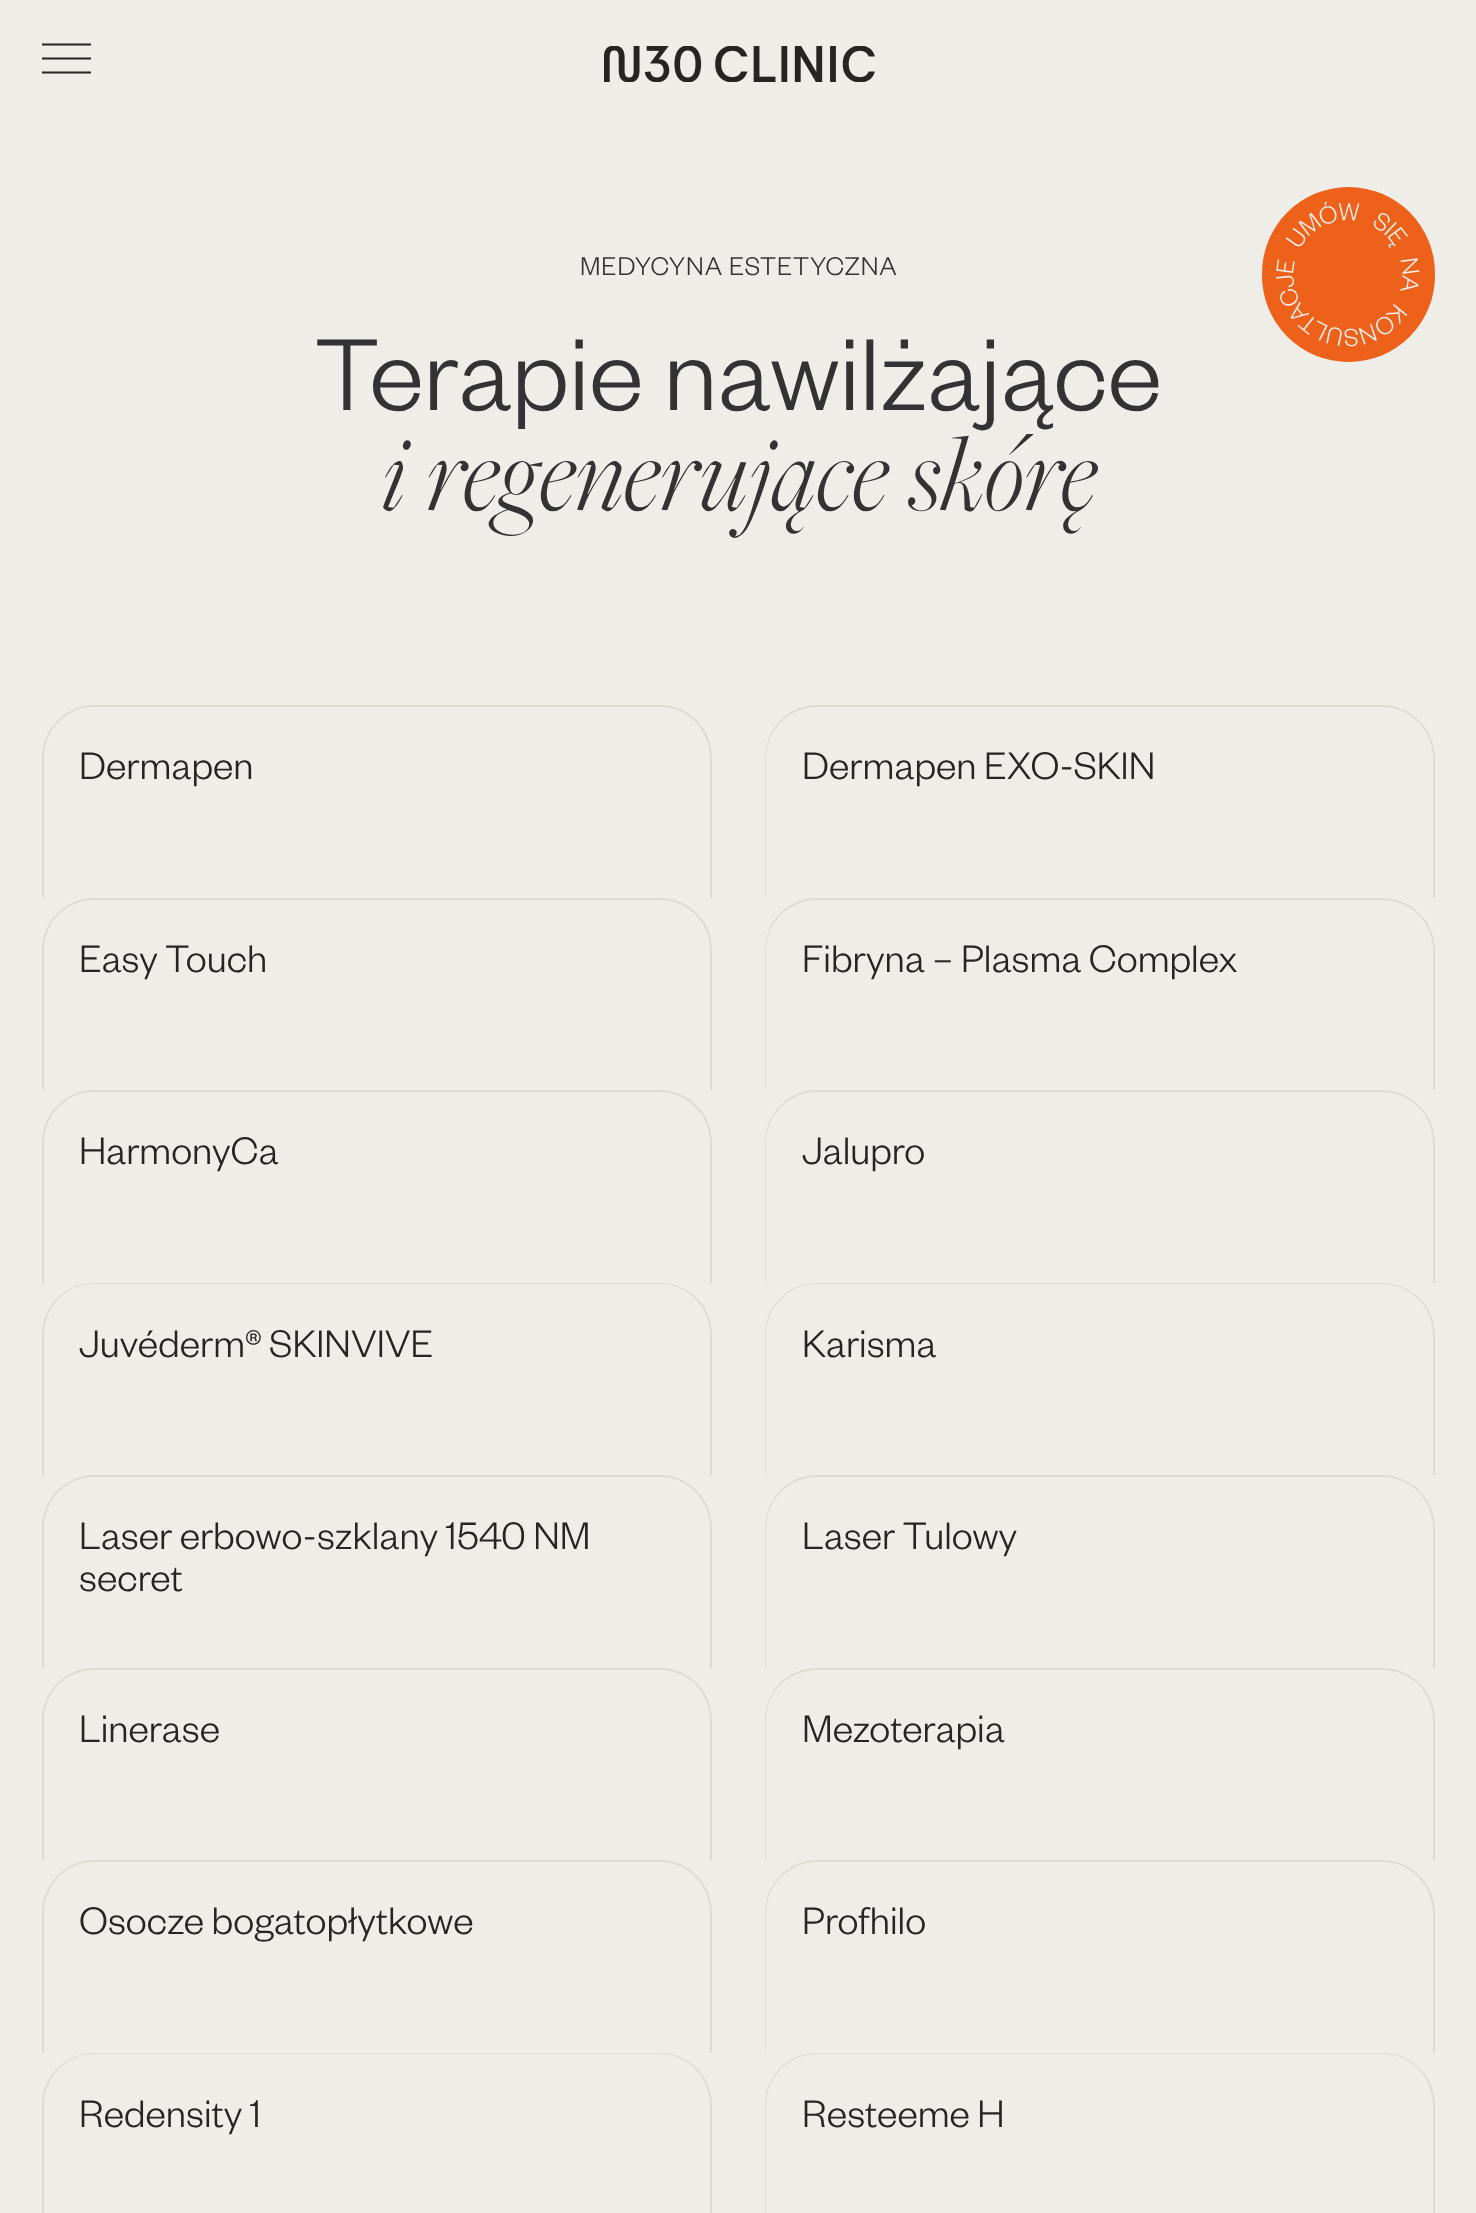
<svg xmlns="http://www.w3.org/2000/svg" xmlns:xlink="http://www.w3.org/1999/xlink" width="1476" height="2213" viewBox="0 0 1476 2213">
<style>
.cls-1{font:300 28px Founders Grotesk;letter-spacing:0.9px;fill:#333333}
.cls-2{font:300 112px Founders Grotesk;fill:#333333}
.cls-3{font:italic 300 112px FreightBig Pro;fill:#333333}
.cls-4{font:300 42px Founders Grotesk;fill:#262521}
</style>
<rect width="100%" height="100%" fill="#efede8"/>
<path fill="none" stroke="#262521" stroke-width="1.8" d="M42 44.5H91M42 58.5H91M42 72.5H91"/>
<image xlink:href="image0.png" x="604" y="46" width="271" height="36"/>
<rect fill="#ed611b" x="1262" y="187" width="173" height="175" rx="86.5"/>
<image xlink:href="image1.png" x="1276" y="201" width="144" height="146"/>
<path fill="#dfdbd1" fill-rule="evenodd" d="M94 705H660C689 705 712 729 712 758V898H42V758C42 729 66 705 94 705ZM94 707H660C688 707 710 730 710 758V898H44V758C44 730 66 707 94 707Z"/>
<path fill="#dfdbd1" fill-rule="evenodd" d="M817 705H1382C1411 705 1435 729 1435 758V898H765V758C765 729 788 705 817 705ZM817 707H1382C1411 707 1433 730 1433 758V898H766V758C766 730 789 707 817 707Z"/>
<path fill="#dfdbd1" fill-rule="evenodd" d="M94 898H660C689 898 712 921 712 950V1090H42V950C42 921 66 898 94 898ZM94 900H660C688 900 710 922 710 950V1090H44V950C44 922 66 900 94 900Z"/>
<path fill="#dfdbd1" fill-rule="evenodd" d="M817 898H1382C1411 898 1435 921 1435 950V1090H765V950C765 921 788 898 817 898ZM817 900H1382C1411 900 1433 922 1433 950V1090H766V950C766 922 789 900 817 900Z"/>
<path fill="#dfdbd1" fill-rule="evenodd" d="M94 1090H660C689 1090 712 1114 712 1143V1283H42V1143C42 1114 66 1090 94 1090ZM94 1092H660C688 1092 710 1115 710 1143V1283H44V1143C44 1115 66 1092 94 1092Z"/>
<path fill="#dfdbd1" fill-rule="evenodd" d="M817 1090H1382C1411 1090 1435 1114 1435 1143V1283H765V1143C765 1114 788 1090 817 1090ZM817 1092H1382C1411 1092 1433 1115 1433 1143V1283H766V1143C766 1115 789 1092 817 1092Z"/>
<path fill="#dfdbd1" fill-rule="evenodd" d="M94 1283H660C689 1283 712 1306 712 1335V1475H42V1335C42 1306 66 1283 94 1283ZM94 1284H660C688 1284 710 1307 710 1335V1475H44V1335C44 1307 66 1284 94 1284Z"/>
<path fill="#dfdbd1" fill-rule="evenodd" d="M817 1283H1382C1411 1283 1435 1306 1435 1335V1475H765V1335C765 1306 788 1283 817 1283ZM817 1284H1382C1411 1284 1433 1307 1433 1335V1475H766V1335C766 1307 789 1284 817 1284Z"/>
<path fill="#dfdbd1" fill-rule="evenodd" d="M94 1475H660C689 1475 712 1499 712 1528V1668H42V1528C42 1499 66 1475 94 1475ZM94 1477H660C688 1477 710 1500 710 1528V1668H44V1528C44 1500 66 1477 94 1477Z"/>
<path fill="#dfdbd1" fill-rule="evenodd" d="M817 1475H1382C1411 1475 1435 1499 1435 1528V1668H765V1528C765 1499 788 1475 817 1475ZM817 1477H1382C1411 1477 1433 1500 1433 1528V1668H766V1528C766 1500 789 1477 817 1477Z"/>
<path fill="#dfdbd1" fill-rule="evenodd" d="M94 1668H660C689 1668 712 1691 712 1720V1860H42V1720C42 1691 66 1668 94 1668ZM94 1670H660C688 1670 710 1692 710 1720V1860H44V1720C44 1692 66 1670 94 1670Z"/>
<path fill="#dfdbd1" fill-rule="evenodd" d="M817 1668H1382C1411 1668 1435 1691 1435 1720V1860H765V1720C765 1691 788 1668 817 1668ZM817 1670H1382C1411 1670 1433 1692 1433 1720V1860H766V1720C766 1692 789 1670 817 1670Z"/>
<path fill="#dfdbd1" fill-rule="evenodd" d="M94 1860H660C689 1860 712 1884 712 1913V2053H42V1913C42 1884 66 1860 94 1860ZM94 1862H660C688 1862 710 1885 710 1913V2053H44V1913C44 1885 66 1862 94 1862Z"/>
<path fill="#dfdbd1" fill-rule="evenodd" d="M817 1860H1382C1411 1860 1435 1884 1435 1913V2053H765V1913C765 1884 788 1860 817 1860ZM817 1862H1382C1411 1862 1433 1885 1433 1913V2053H766V1913C766 1885 789 1862 817 1862Z"/>
<path fill="#dfdbd1" fill-rule="evenodd" d="M94 2053H660C689 2053 712 2076 712 2105V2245H42V2105C42 2076 66 2053 94 2053ZM94 2054H660C688 2054 710 2077 710 2105V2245H44V2105C44 2077 66 2054 94 2054Z"/>
<path fill="#dfdbd1" fill-rule="evenodd" d="M817 2053H1382C1411 2053 1435 2076 1435 2105V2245H765V2105C765 2076 788 2053 817 2053ZM817 2054H1382C1411 2054 1433 2077 1433 2105V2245H766V2105C766 2077 789 2054 817 2054Z"/>
<text class="cls-1" x="580" y="275">MEDYCYNA ESTETYCZNA</text>
<text class="cls-2" x="315" y="410">Terapie nawilżające</text>
<text class="cls-3" x="381" y="510">i regenerujące skórę</text>
<text class="cls-4" x="79" y="779">Dermapen</text>
<text class="cls-4" x="802" y="779">Dermapen EXO-SKIN</text>
<text class="cls-4" x="79" y="972">Easy Touch</text>
<text class="cls-4" x="802" y="972">Fibryna – Plasma Complex</text>
<text class="cls-4" x="79" y="1164">HarmonyCa</text>
<text class="cls-4" x="802" y="1164">Jalupro</text>
<text class="cls-4" x="79" y="1357">Juvéderm® SKINVIVE</text>
<text class="cls-4" x="802" y="1357">Karisma</text>
<text class="cls-4"><tspan x="79" y="1549">Laser erbowo-szklany 1540 NM</tspan><tspan x="79" y="1591">secret</tspan></text>
<text class="cls-4" x="802" y="1549">Laser Tulowy</text>
<text class="cls-4" x="79" y="1742">Linerase</text>
<text class="cls-4" x="802" y="1742">Mezoterapia</text>
<text class="cls-4" x="79" y="1934">Osocze bogatopłytkowe</text>
<text class="cls-4" x="802" y="1934">Profhilo</text>
<text class="cls-4" x="79" y="2127">Redensity 1</text>
<text class="cls-4" x="802" y="2127">Resteeme H</text>
</svg>
